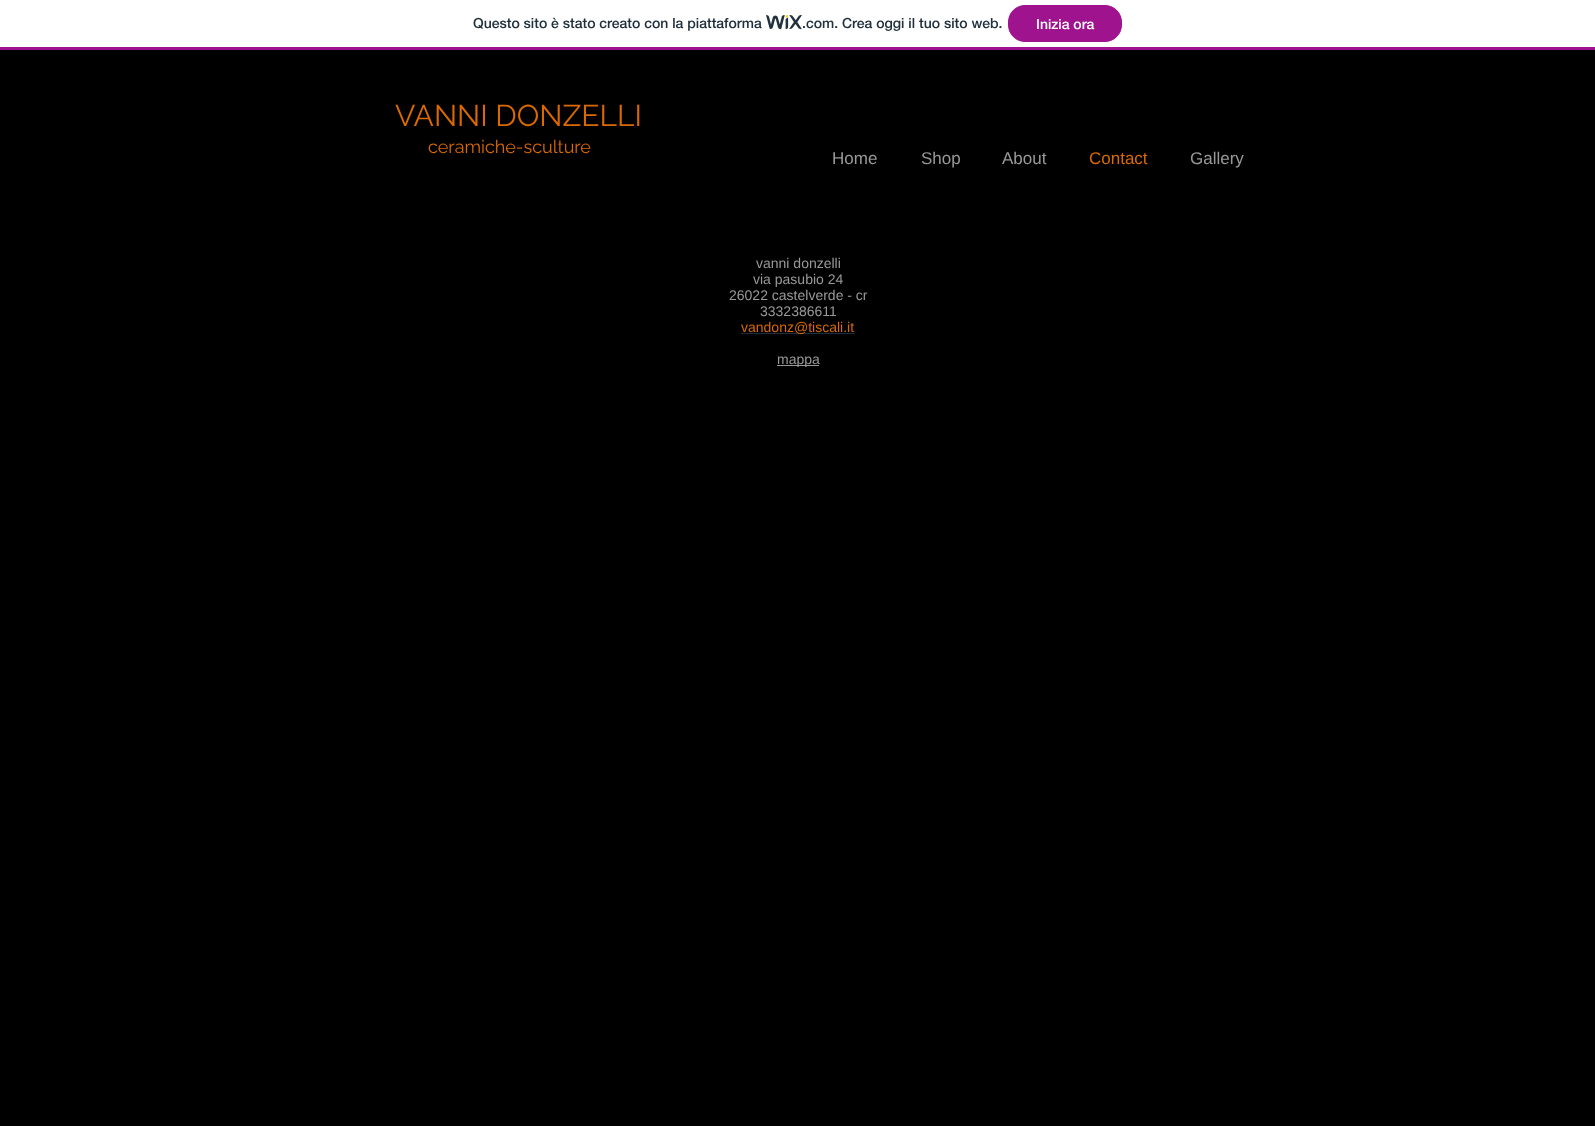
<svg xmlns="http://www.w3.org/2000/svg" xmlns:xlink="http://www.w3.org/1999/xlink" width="1595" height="1126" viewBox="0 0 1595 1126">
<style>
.cls-1{font:500 14px 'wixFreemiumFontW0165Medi';fill:#20303c}
.cls-2{font:500 14px 'wixFreemiumFontW0165Medi';fill:#ffffff}
.cls-3{font:30px Raleway;fill:#d96900}
.cls-4{font:18px Raleway;fill:#d96900}
.cls-5{font:17px Liberation Sans;fill:#999999}
.cls-6{font:17px Liberation Sans;fill:#d96900}
.cls-7{font:14px Liberation Sans;fill:#999999}
.cls-8{font:14px Liberation Sans;fill:#d96900}
</style>
<rect width="100%" height="100%" fill="#ffffff"/>
<rect fill="#a0138e" x="0" y="47" width="1595" height="3"/>
<image xlink:href="image0.png" x="766" y="15" width="36" height="15"/>
<rect fill="#a0138e" stroke="#a0138e" x="1008.5" y="5.5" width="113" height="36" rx="16.5"/>
<rect fill="#000000" x="0" y="50" width="1595" height="1076"/>
<rect fill="#1e2f3b" x="741" y="333" width="114" height="1"/>
<rect fill="#999999" x="777" y="365" width="42" height="1"/>
<text class="cls-1" x="473" y="28">Questo sito è stato creato con la piattaforma</text>
<text class="cls-1" x="802" y="28">.com. Crea oggi il tuo sito web.</text>
<text class="cls-2" x="1036" y="29">Inizia ora</text>
<text class="cls-3" x="395" y="126">VANNI DONZELLI</text>
<text class="cls-4" x="428" y="153">ceramiche-sculture</text>
<text class="cls-5" x="832" y="164">Home</text>
<text class="cls-5" x="921" y="164">Shop</text>
<text class="cls-5" x="1002" y="164">About</text>
<text class="cls-6" x="1089" y="164">Contact</text>
<text class="cls-5" x="1190" y="164">Gallery</text>
<text class="cls-7" x="756" y="268">vanni donzelli</text>
<text class="cls-7" x="753" y="284">via pasubio 24</text>
<text class="cls-7" x="729" y="300">26022 castelverde - cr</text>
<text class="cls-7" x="760" y="316">3332386611</text>
<text class="cls-8" x="741" y="332">vandonz@tiscali.it</text>
<text class="cls-7" x="777" y="364">mappa</text>
</svg>
